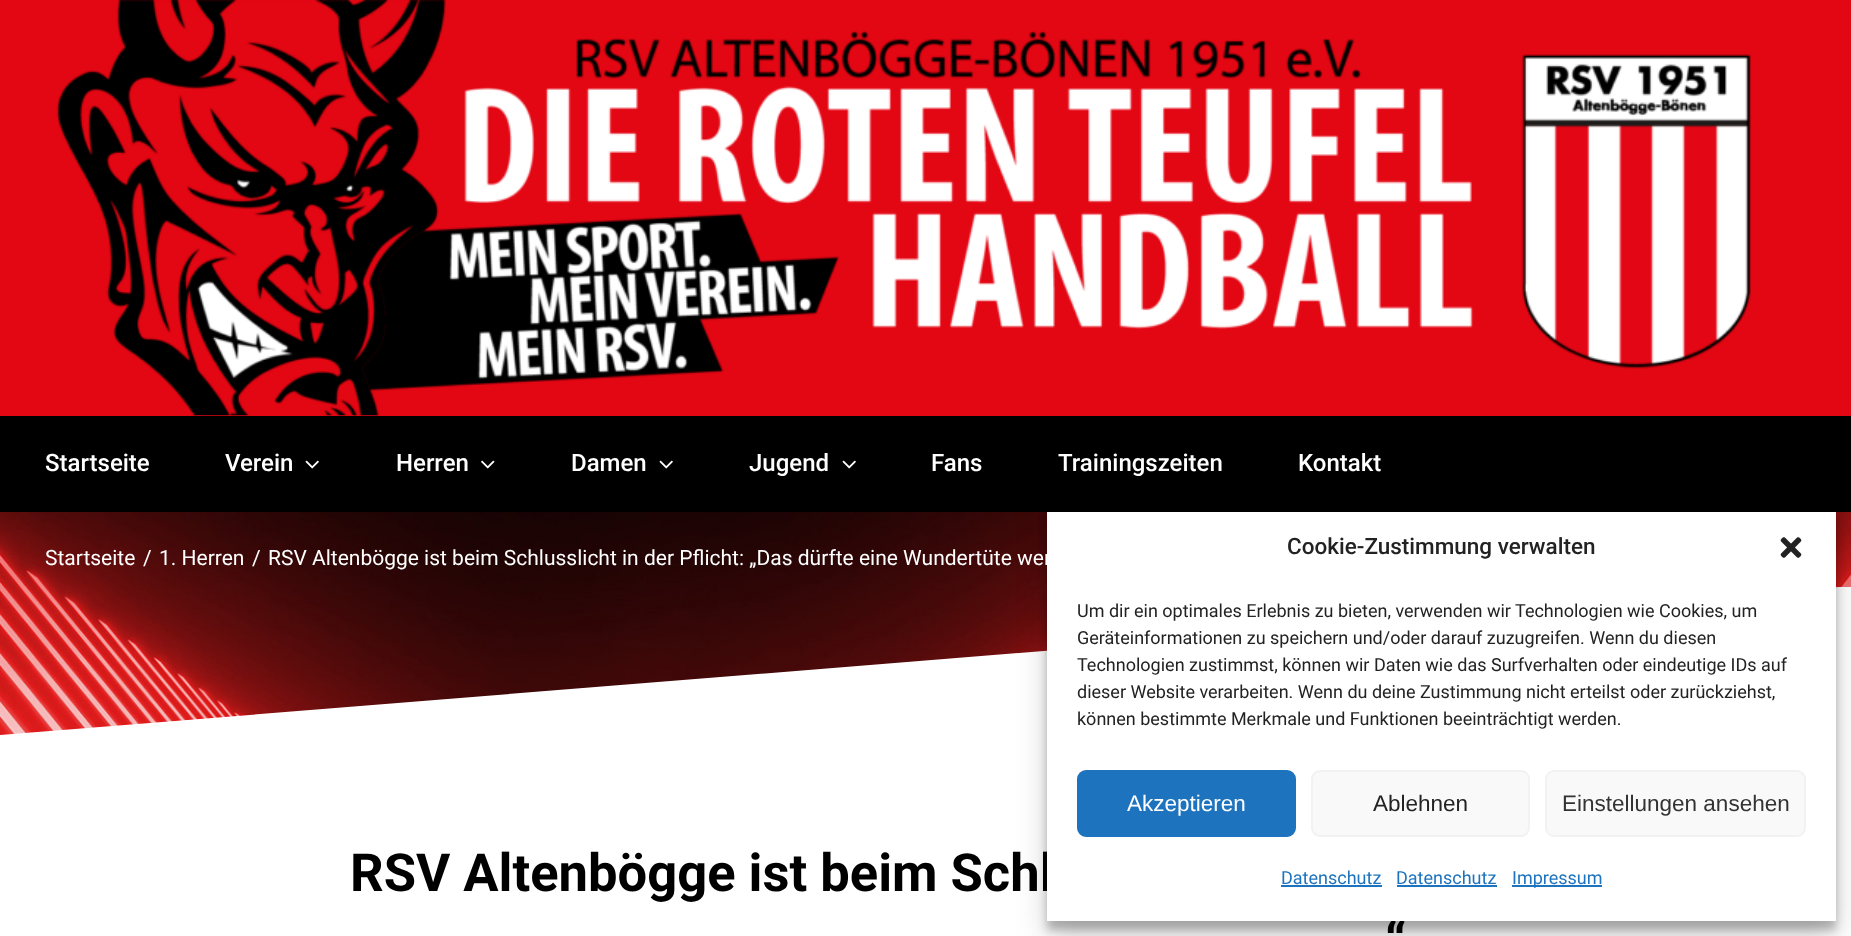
<svg xmlns="http://www.w3.org/2000/svg" xmlns:xlink="http://www.w3.org/1999/xlink" width="1851" height="936" viewBox="0 0 1851 936">
<style>
.cls-1{font:500 24px Roboto;fill:#ffffff}
.cls-2{font:21px Roboto;fill:#ffffff}
.cls-3{font:bold 52.5px Roboto;fill:#000000}
.cls-4{font:500 22.5px Roboto;fill:#222222}
.cls-5{font:18px Roboto;fill:#222222}
.cls-6{font:22.5px Liberation Sans;fill:#ffffff}
.cls-7{font:22.5px Liberation Sans;fill:#222222}
.cls-8{font:22.5px Liberation Sans;fill:#333333}
.cls-9{font:18px Roboto;fill:#1e73be}
</style>
<defs>
<clipPath id="clip1"><rect x="0" y="587" width="1851" height="148"/></clipPath>
</defs>
<rect width="100%" height="100%" fill="#ffffff"/>
<rect fill="#e30613" x="0" y="0" width="1851" height="416"/>
<image xlink:href="image0.png" x="56" y="0" width="1695" height="416"/>
<image xlink:href="image3.png" x="0" y="512" width="1851" height="223"/>
<g clip-path="url(#clip1)">
<path fill="#ffffff" d="M1851 586L0 735H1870Z"/>
</g>
<rect fill="#000000" fill-opacity="0.23" filter="blur(4.5px)" x="1047" y="515" width="789" height="415"/>
<rect fill="#000000" fill-opacity="0.19" filter="blur(15px)" x="1047" y="521" width="789" height="415"/>
<rect fill="#000000" x="0" y="416" width="1851" height="96"/>
<image xlink:href="image1.png" x="305" y="460" width="14" height="9"/>
<image xlink:href="image2.png" x="481" y="460" width="14" height="9"/>
<image xlink:href="image1.png" x="659" y="460" width="14" height="9"/>
<image xlink:href="image1.png" x="842" y="460" width="14" height="9"/>
<text class="cls-1" x="45" y="471">Startseite</text>
<text class="cls-1" x="225" y="471">Verein</text>
<text class="cls-1" x="396" y="471">Herren</text>
<text class="cls-1" x="571" y="471">Damen</text>
<text class="cls-1" x="749" y="471">Jugend</text>
<text class="cls-1" x="931" y="471">Fans</text>
<text class="cls-1" x="1058" y="471">Trainingszeiten</text>
<text class="cls-1" x="1298" y="471">Kontakt</text>
<text class="cls-2" x="45" y="565">Startseite</text>
<text class="cls-2" x="143" y="565">/</text>
<text class="cls-2" x="159" y="565">1. Herren</text>
<text class="cls-2" x="252" y="565">/</text>
<text class="cls-2" x="268" y="565">RSV Altenbögge ist beim Schlusslicht in der Pflicht: „Das dürfte eine Wundertüte wer</text>
<text class="cls-3" x="350" y="891">RSV Altenbögge ist beim Schl</text>
<text class="cls-3" x="1385" y="960">“</text>
<rect fill="#ffffff" x="1047" y="512" width="789" height="409"/>
<text class="cls-4" x="1287" y="554">Cookie-Zustimmung verwalten</text>
<image xlink:href="image4.png" x="1780" y="537" width="22" height="21"/>
<text class="cls-5"><tspan x="1077" y="617">Um dir ein optimales Erlebnis zu bieten, verwenden wir Technologien wie Cookies, um</tspan><tspan x="1077" y="644">Geräteinformationen zu speichern und/oder darauf zuzugreifen. Wenn du diesen</tspan><tspan x="1077" y="671">Technologien zustimmst, können wir Daten wie das Surfverhalten oder eindeutige IDs auf</tspan><tspan x="1077" y="698">dieser Website verarbeiten. Wenn du deine Zustimmung nicht erteilst oder zurückziehst,</tspan><tspan x="1077" y="725">können bestimmte Merkmale und Funktionen beeinträchtigt werden.</tspan></text>
<rect fill="#1e73be" stroke="#1e73be" stroke-width="2" x="1078" y="771" width="217" height="65" rx="8"/>
<text class="cls-6" x="1127" y="811">Akzeptieren</text>
<rect fill="#f9f9f9" stroke="#f2f2f2" stroke-width="2" x="1312" y="771" width="217" height="65" rx="8"/>
<text class="cls-7" x="1373" y="811">Ablehnen</text>
<rect fill="#f9f9f9" stroke="#f2f2f2" stroke-width="2" x="1546" y="771" width="259" height="65" rx="8"/>
<text class="cls-8" x="1562" y="811">Einstellungen ansehen</text>
<text class="cls-9" x="1281" y="884">Datenschutz</text>
<rect fill="#1e73be" x="1281" y="885" width="101" height="2"/>
<text class="cls-9" x="1396" y="884">Datenschutz</text>
<rect fill="#1e73be" x="1397" y="885" width="100" height="2"/>
<rect fill="#1e73be" x="1512" y="885" width="90" height="2"/>
<text class="cls-9" x="1512" y="884">Impressum</text>
</svg>
